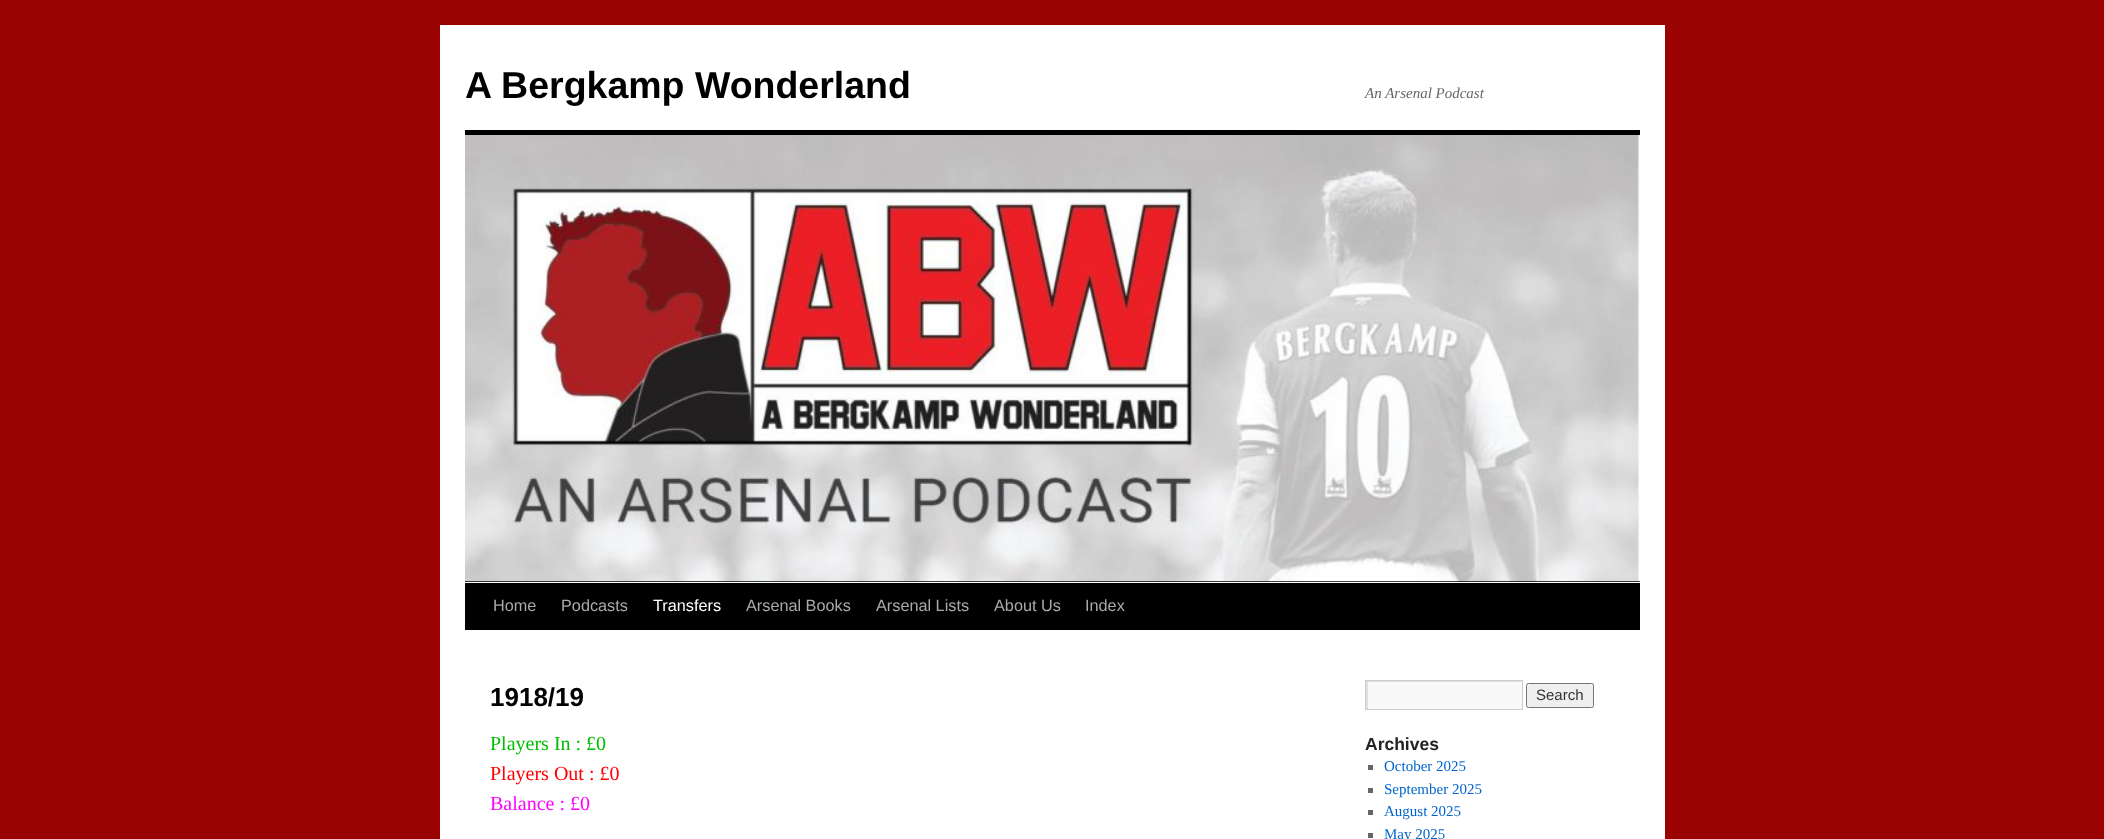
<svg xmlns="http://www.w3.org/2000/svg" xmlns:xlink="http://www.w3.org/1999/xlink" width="2104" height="839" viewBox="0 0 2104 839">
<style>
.cls-1{font:bold 37.5px Liberation Sans;fill:#000000}
.cls-2{font:italic 15px Liberation Serif;fill:#666666}
.cls-3{font:16.25px Liberation Sans;fill:#aaaaaa}
.cls-4{font:16.25px Liberation Sans;fill:#ffffff}
.cls-5{font:bold 26px Liberation Sans;fill:#000000}
.cls-6{font:20px Liberation Serif;fill:#00bf00}
.cls-7{font:20px Liberation Serif;fill:#ff0000}
.cls-8{font:20px Liberation Serif;fill:#ff00ff}
.cls-9{font:15px Liberation Sans;fill:#333333}
.cls-10{font:bold 17.5px Liberation Sans;fill:#222222}
.cls-11{font:15px Liberation Serif;fill:#0066cc}
</style>
<defs>
<clipPath id="clip1"><rect x="1366" y="681" width="155" height="28"/></clipPath>
</defs>
<rect width="100%" height="100%" fill="#9b0303"/>
<rect fill="#ffffff" x="440" y="25" width="1225" height="814"/>
<rect fill="#000000" x="465" y="130" width="1175" height="5"/>
<rect fill="#000000" x="465" y="581" width="1175" height="1"/>
<image xlink:href="image0.png" x="465" y="135" width="1175" height="447"/>
<rect fill="#000000" x="465" y="583" width="1175" height="47"/>
<rect fill="#f9f9f9" x="1368" y="681" width="154" height="28"/>
<g clip-path="url(#clip1)">
<path fill="#e0e0e0" fill-rule="evenodd" d="M1242 558H1645V832H1242ZM1368 682H1522V710H1368Z"/>
</g>
<rect fill="none" stroke="#cccccc" x="1365.5" y="680.5" width="157" height="29"/>
<rect fill="#efefef" stroke="#767676" x="1526.5" y="683.5" width="67" height="24" rx="2"/>
<rect fill="#666666" x="1368" y="765" width="5" height="5"/>
<rect fill="#666666" x="1368" y="788" width="5" height="5"/>
<rect fill="#666666" x="1368" y="810" width="5" height="5"/>
<rect fill="#666666" x="1368" y="833" width="5" height="5"/>
<text class="cls-1" x="465" y="98">A Bergkamp Wonderland</text>
<text class="cls-2" x="1365" y="98">An Arsenal Podcast</text>
<text class="cls-3" x="493" y="611">Home</text>
<text class="cls-3" x="561" y="611">Podcasts</text>
<text class="cls-4" x="653" y="611">Transfers</text>
<text class="cls-3" x="746" y="611">Arsenal Books</text>
<text class="cls-3" x="876" y="611">Arsenal Lists</text>
<text class="cls-3" x="994" y="611">About Us</text>
<text class="cls-3" x="1085" y="611">Index</text>
<text class="cls-5" x="490" y="706">1918/19</text>
<text class="cls-6" x="490" y="750">Players In : £0</text>
<text class="cls-7" x="490" y="780">Players Out : £0</text>
<text class="cls-8" x="490" y="810">Balance : £0</text>
<text class="cls-9" x="1536" y="700">Search</text>
<text class="cls-10" x="1365" y="750">Archives</text>
<text class="cls-11"><tspan x="1384" y="771">October 2025</tspan><tspan x="1384" y="794">September 2025</tspan><tspan x="1384" y="816">August 2025</tspan><tspan x="1384" y="839">May 2025</tspan></text>
</svg>
